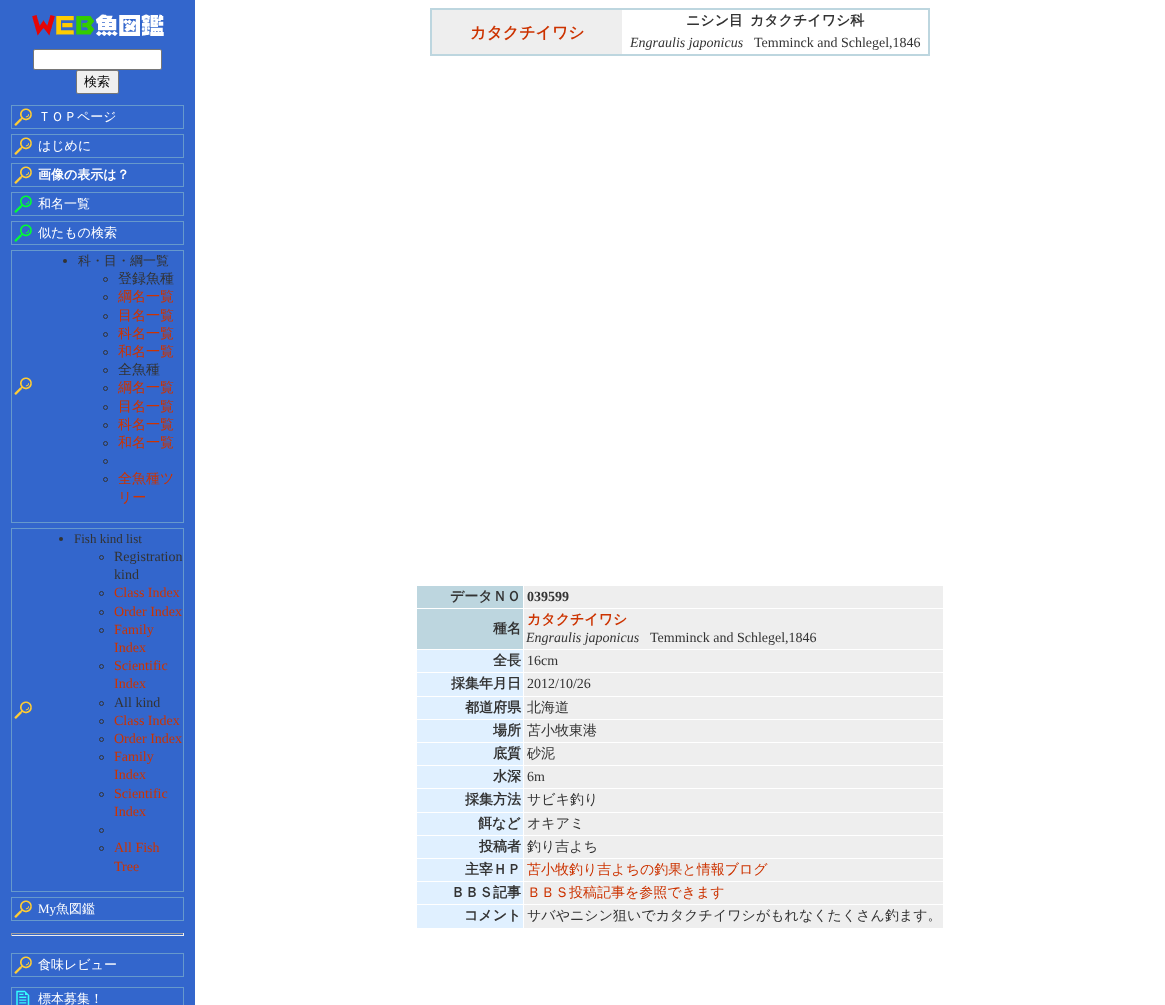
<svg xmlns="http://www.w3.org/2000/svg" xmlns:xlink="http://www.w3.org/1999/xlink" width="1165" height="1005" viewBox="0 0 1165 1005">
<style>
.cls-1{font:500 13px WenQuanYi Zen Hei;fill:#000000}
.cls-2{font:500 13px WenQuanYi Zen Hei;fill:#ffffff}
.cls-3{font:bold 13px WenQuanYi Zen Hei;fill:#ffffff}
.cls-4{font:500 13px WenQuanYi Zen Hei;fill:#333333}
.cls-5{font:500 14px WenQuanYi Zen Hei;fill:#333333}
.cls-6{font:500 14px WenQuanYi Zen Hei;fill:#cc3300}
.cls-7{font:13px Liberation Serif;fill:#333333}
.cls-8{font:14px Liberation Serif;fill:#333333}
.cls-9{font:14px Liberation Serif;fill:#cc3300}
.cls-10{font:13px Liberation Serif;fill:#ffffff}
.cls-11{font:bold 14px WenQuanYi Zen Hei;fill:#333333}
.cls-12{font:bold 16px WenQuanYi Zen Hei;fill:#cc3300}
.cls-13{font:italic 14px Liberation Serif;fill:#333333}
.cls-14{font:bold 14px Liberation Serif;fill:#333333}
.cls-15{font:bold 14px WenQuanYi Zen Hei;fill:#cc3300}
</style>
<rect width="100%" height="100%" fill="#ffffff"/>
<rect fill="#3366cc" x="0" y="0" width="195" height="1005"/>
<image xlink:href="image0.png" x="32" y="14" width="132" height="22"/>
<rect fill="#ffffff" stroke="#767676" x="33.5" y="49.5" width="128" height="20" rx="1.5"/>
<rect fill="#efefef" stroke="#767676" x="76.5" y="70.5" width="42" height="23" rx="1.5"/>
<rect fill="none" stroke="#6699cc" x="11.5" y="105.5" width="172" height="23"/>
<image xlink:href="image1.png" x="14" y="108" width="18" height="18"/>
<rect fill="none" stroke="#6699cc" x="11.5" y="134.5" width="172" height="23"/>
<image xlink:href="image1.png" x="14" y="137" width="18" height="18"/>
<rect fill="none" stroke="#6699cc" x="11.5" y="163.5" width="172" height="23"/>
<image xlink:href="image1.png" x="14" y="166" width="18" height="18"/>
<rect fill="none" stroke="#6699cc" x="11.5" y="192.5" width="172" height="23"/>
<image xlink:href="image2.png" x="14" y="195" width="18" height="18"/>
<rect fill="none" stroke="#6699cc" x="11.5" y="221.5" width="172" height="23"/>
<image xlink:href="image2.png" x="14" y="224" width="18" height="18"/>
<rect fill="none" stroke="#6699cc" x="11.5" y="250.5" width="172" height="272"/>
<image xlink:href="image1.png" x="14" y="377" width="18" height="18"/>
<circle fill="#333333" cx="65" cy="261" r="2"/>
<circle fill="none" stroke="#333333" cx="105.5" cy="279.5" r="2"/>
<circle fill="none" stroke="#333333" cx="105.5" cy="297.5" r="2"/>
<circle fill="none" stroke="#333333" cx="105.5" cy="316.5" r="2"/>
<circle fill="none" stroke="#333333" cx="105.5" cy="334.5" r="2"/>
<circle fill="none" stroke="#333333" cx="105.5" cy="352.5" r="2"/>
<circle fill="none" stroke="#333333" cx="105.5" cy="370.5" r="2"/>
<circle fill="none" stroke="#333333" cx="105.5" cy="388.5" r="2"/>
<circle fill="none" stroke="#333333" cx="105.5" cy="407.5" r="2"/>
<circle fill="none" stroke="#333333" cx="105.5" cy="425.5" r="2"/>
<circle fill="none" stroke="#333333" cx="105.5" cy="443.5" r="2"/>
<circle fill="none" stroke="#333333" cx="105.5" cy="461.5" r="2"/>
<circle fill="none" stroke="#333333" cx="105.5" cy="479.5" r="2"/>
<rect fill="none" stroke="#6699cc" x="11.5" y="528.5" width="172" height="363"/>
<image xlink:href="image1.png" x="14" y="701" width="18" height="18"/>
<circle fill="#333333" cx="61" cy="539" r="2"/>
<circle fill="none" stroke="#333333" cx="101.5" cy="557.5" r="2"/>
<circle fill="none" stroke="#333333" cx="101.5" cy="593.5" r="2"/>
<circle fill="none" stroke="#333333" cx="101.5" cy="612.5" r="2"/>
<circle fill="none" stroke="#333333" cx="101.5" cy="630.5" r="2"/>
<circle fill="none" stroke="#333333" cx="101.5" cy="666.5" r="2"/>
<circle fill="none" stroke="#333333" cx="101.5" cy="703.5" r="2"/>
<circle fill="none" stroke="#333333" cx="101.5" cy="721.5" r="2"/>
<circle fill="none" stroke="#333333" cx="101.5" cy="739.5" r="2"/>
<circle fill="none" stroke="#333333" cx="101.5" cy="757.5" r="2"/>
<circle fill="none" stroke="#333333" cx="101.5" cy="794.5" r="2"/>
<circle fill="none" stroke="#333333" cx="101.5" cy="830.5" r="2"/>
<circle fill="none" stroke="#333333" cx="101.5" cy="848.5" r="2"/>
<rect fill="none" stroke="#6699cc" x="11.5" y="897.5" width="172" height="23"/>
<image xlink:href="image1.png" x="14" y="900" width="18" height="18"/>
<rect fill="#9f9f9f" x="11" y="933" width="173" height="1"/>
<rect fill="#eeeeee" x="183" y="933" width="1" height="3"/>
<rect fill="#eeeeee" x="11" y="935" width="173" height="1"/>
<rect fill="#9f9f9f" x="11" y="933" width="1" height="3"/>
<rect fill="none" stroke="#6699cc" x="11.5" y="953.5" width="172" height="23"/>
<image xlink:href="image1.png" x="14" y="956" width="18" height="18"/>
<rect fill="none" stroke="#6699cc" x="11.5" y="987.5" width="172" height="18"/>
<image xlink:href="image3.png" x="16" y="990" width="14" height="15"/>
<rect fill="none" stroke="#bdd6df" stroke-width="2" x="431" y="9" width="498" height="46"/>
<rect fill="#eeeeee" x="432" y="10" width="190" height="44"/>
<rect fill="#bdd6df" x="417" y="586" width="106" height="22"/>
<rect fill="#eeeeee" x="524" y="586" width="419" height="22"/>
<rect fill="#bdd6df" x="417" y="609" width="106" height="40"/>
<rect fill="#eeeeee" x="524" y="609" width="419" height="40"/>
<rect fill="#e0f0ff" x="417" y="650" width="106" height="22"/>
<rect fill="#eeeeee" x="524" y="650" width="419" height="22"/>
<rect fill="#e0f0ff" x="417" y="673" width="106" height="23"/>
<rect fill="#eeeeee" x="524" y="673" width="419" height="23"/>
<rect fill="#e0f0ff" x="417" y="697" width="106" height="22"/>
<rect fill="#eeeeee" x="524" y="697" width="419" height="22"/>
<rect fill="#e0f0ff" x="417" y="720" width="106" height="22"/>
<rect fill="#eeeeee" x="524" y="720" width="419" height="22"/>
<rect fill="#e0f0ff" x="417" y="743" width="106" height="22"/>
<rect fill="#eeeeee" x="524" y="743" width="419" height="22"/>
<rect fill="#e0f0ff" x="417" y="766" width="106" height="22"/>
<rect fill="#eeeeee" x="524" y="766" width="419" height="22"/>
<rect fill="#e0f0ff" x="417" y="789" width="106" height="23"/>
<rect fill="#eeeeee" x="524" y="789" width="419" height="23"/>
<rect fill="#e0f0ff" x="417" y="813" width="106" height="22"/>
<rect fill="#eeeeee" x="524" y="813" width="419" height="22"/>
<rect fill="#e0f0ff" x="417" y="836" width="106" height="22"/>
<rect fill="#eeeeee" x="524" y="836" width="419" height="22"/>
<rect fill="#e0f0ff" x="417" y="859" width="106" height="22"/>
<rect fill="#eeeeee" x="524" y="859" width="419" height="22"/>
<rect fill="#e0f0ff" x="417" y="882" width="106" height="22"/>
<rect fill="#eeeeee" x="524" y="882" width="419" height="22"/>
<rect fill="#e0f0ff" x="417" y="905" width="106" height="23"/>
<rect fill="#eeeeee" x="524" y="905" width="419" height="23"/>
<text class="cls-1" x="84" y="86">検索</text>
<text class="cls-2" x="38" y="121">ＴＯＰページ</text>
<text class="cls-2" x="38" y="150">はじめに</text>
<text class="cls-3" x="38" y="179">画像の表示は？</text>
<text class="cls-2" x="38" y="208">和名一覧</text>
<text class="cls-2" x="38" y="237">似たもの検索</text>
<text class="cls-4" x="78" y="265">科・目・綱一覧</text>
<text class="cls-5" x="118" y="283">登録魚種</text>
<text class="cls-6"><tspan x="118" y="301">綱名一覧</tspan><tspan x="118" y="320">目名一覧</tspan><tspan x="118" y="338">科名一覧</tspan><tspan x="118" y="356">和名一覧</tspan></text>
<text class="cls-5" x="118" y="374">全魚種</text>
<text class="cls-6"><tspan x="118" y="392">綱名一覧</tspan><tspan x="118" y="411">目名一覧</tspan><tspan x="118" y="429">科名一覧</tspan><tspan x="118" y="447">和名一覧</tspan></text>
<text class="cls-6"><tspan x="118" y="483">全魚種ツ</tspan><tspan x="118" y="502">リー</tspan></text>
<text class="cls-7" x="74" y="543">Fish kind list</text>
<text class="cls-8"><tspan x="114" y="561">Registration</tspan><tspan x="114" y="579">kind</tspan></text>
<text class="cls-9"><tspan x="114" y="597">Class Index</tspan><tspan x="114" y="616">Order Index</tspan><tspan x="114" y="634">Family</tspan><tspan x="114" y="652">Index</tspan><tspan x="114" y="670">Scientific</tspan><tspan x="114" y="688">Index</tspan></text>
<text class="cls-8" x="114" y="707">All kind</text>
<text class="cls-9"><tspan x="114" y="725">Class Index</tspan><tspan x="114" y="743">Order Index</tspan><tspan x="114" y="761">Family</tspan><tspan x="114" y="779">Index</tspan><tspan x="114" y="798">Scientific</tspan><tspan x="114" y="816">Index</tspan></text>
<text class="cls-9"><tspan x="114" y="852">All Fish</tspan><tspan x="114" y="871">Tree</tspan></text>
<text class="cls-10" x="38" y="913">My</text>
<text class="cls-2" x="56" y="913">魚図鑑</text>
<text class="cls-2" x="38" y="969">食味レビュー</text>
<text class="cls-2" x="38" y="1003">標本募集！</text>
<text class="cls-11" x="686" y="25">ニシン目</text>
<text class="cls-11" x="750" y="25">カタクチイワシ科</text>
<text class="cls-12" x="470" y="38">カタクチイワシ</text>
<text class="cls-13" x="630" y="47">Engraulis japonicus</text>
<text class="cls-8" x="754" y="47">Temminck and Schlegel,1846</text>
<text class="cls-11" x="450" y="601">データＮＯ</text>
<text class="cls-14" x="527" y="601">039599</text>
<text class="cls-11" x="493" y="633">種名</text>
<text class="cls-15" x="527" y="624">カタクチイワシ</text>
<text class="cls-13" x="526" y="642">Engraulis japonicus</text>
<text class="cls-8" x="650" y="642">Temminck and Schlegel,1846</text>
<text class="cls-11" x="493" y="665">全長</text>
<text class="cls-8" x="527" y="665">16cm</text>
<text class="cls-11" x="451" y="688">採集年月日</text>
<text class="cls-8" x="527" y="688">2012/10/26</text>
<text class="cls-11" x="465" y="712">都道府県</text>
<text class="cls-5" x="527" y="712">北海道</text>
<text class="cls-11" x="493" y="735">場所</text>
<text class="cls-5" x="527" y="735">苫小牧東港</text>
<text class="cls-11" x="493" y="758">底質</text>
<text class="cls-5" x="527" y="758">砂泥</text>
<text class="cls-11" x="493" y="781">水深</text>
<text class="cls-8" x="527" y="781">6m</text>
<text class="cls-11" x="465" y="804">採集方法</text>
<text class="cls-5" x="527" y="804">サビキ釣り</text>
<text class="cls-11" x="478" y="828">餌など</text>
<text class="cls-5" x="527" y="828">オキアミ</text>
<text class="cls-11" x="479" y="851">投稿者</text>
<text class="cls-5" x="527" y="851">釣り吉よち</text>
<text class="cls-11" x="465" y="874">主宰ＨＰ</text>
<text class="cls-6" x="527" y="874">苫小牧釣り吉よちの釣果と情報ブログ</text>
<text class="cls-11" x="451" y="897">ＢＢＳ記事</text>
<text class="cls-6" x="527" y="897">ＢＢＳ投稿記事を参照できます</text>
<text class="cls-11" x="464" y="920">コメント</text>
<text class="cls-5" x="527" y="920">サバやニシン狙いでカタクチイワシがもれなくたくさん釣ます。</text>
</svg>
